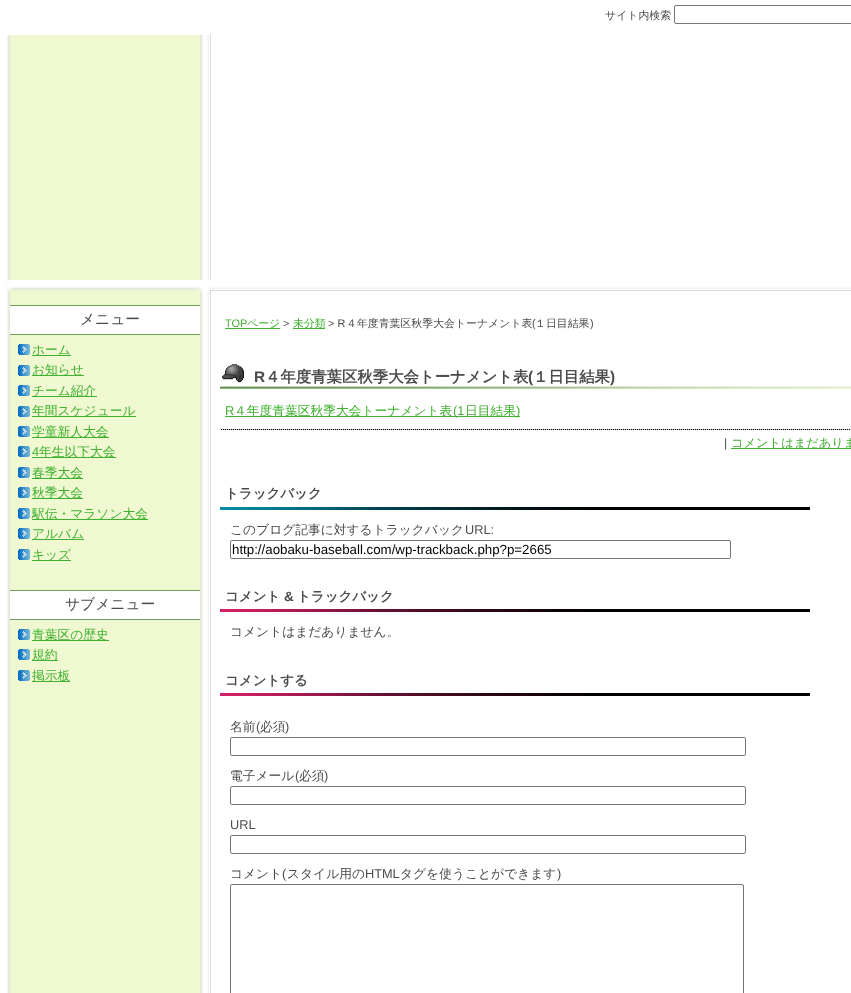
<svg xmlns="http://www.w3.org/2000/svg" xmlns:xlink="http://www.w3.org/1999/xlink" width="851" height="993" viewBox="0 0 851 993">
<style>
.cls-1{font:500 10.9px WenQuanYi Zen Hei;fill:#4b4b4b}
.cls-2{font:500 14.75px WenQuanYi Zen Hei;fill:#4b4b4b}
.cls-3{font:500 12.75px WenQuanYi Zen Hei;fill:#40b030}
.cls-4{font:12.75px Liberation Sans;fill:#40b030}
.cls-5{font:10.9px Liberation Sans;fill:#40b030}
.cls-6{font:500 10.9px WenQuanYi Zen Hei;fill:#40b030}
.cls-7{font:10.9px Liberation Sans;fill:#4b4b4b}
.cls-8{font:bold 15.4px Liberation Sans;fill:#4b4b4b}
.cls-9{font:bold 15.4px WenQuanYi Zen Hei;fill:#4b4b4b}
.cls-10{font:12.25px Liberation Sans;fill:#4b4b4b}
.cls-11{font:500 12.25px WenQuanYi Zen Hei;fill:#40b030}
.cls-12{font:bold 13.5px WenQuanYi Zen Hei;fill:#4b4b4b}
.cls-13{font:500 12.75px WenQuanYi Zen Hei;fill:#4b4b4b}
.cls-14{font:12.75px Liberation Sans;fill:#4b4b4b}
.cls-15{font:13.3px Liberation Sans;fill:#000000}
.cls-16{font:bold 13.5px Liberation Sans;fill:#4b4b4b}
</style>
<rect width="100%" height="100%" fill="#ffffff"/>
<image xlink:href="image0.png" x="0" y="35" width="851" height="958"/>
<rect fill="none" stroke="#767676" x="674.5" y="5.5" width="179" height="18" rx="1.5"/>
<image xlink:href="image1.png" x="7" y="280" width="844" height="13"/>
<rect fill="#ffffff" x="10" y="306" width="190" height="28"/>
<rect fill="#70a060" x="10" y="305" width="190" height="1"/>
<rect fill="#70a060" x="10" y="334" width="190" height="1"/>
<image xlink:href="image2.png" x="18" y="344" width="12" height="11"/>
<rect fill="#40b030" x="32" y="355" width="39" height="1"/>
<image xlink:href="image2.png" x="18" y="365" width="12" height="11"/>
<rect fill="#40b030" x="32" y="375" width="52" height="1"/>
<image xlink:href="image2.png" x="18" y="385" width="12" height="11"/>
<rect fill="#40b030" x="32" y="396" width="65" height="1"/>
<image xlink:href="image2.png" x="18" y="406" width="12" height="11"/>
<rect fill="#40b030" x="32" y="416" width="104" height="1"/>
<image xlink:href="image2.png" x="18" y="426" width="12" height="11"/>
<rect fill="#40b030" x="32" y="437" width="77" height="1"/>
<image xlink:href="image2.png" x="18" y="446" width="12" height="11"/>
<rect fill="#40b030" x="32" y="457" width="84" height="1"/>
<image xlink:href="image2.png" x="18" y="467" width="12" height="11"/>
<rect fill="#40b030" x="32" y="478" width="51" height="1"/>
<image xlink:href="image2.png" x="18" y="487" width="12" height="11"/>
<rect fill="#40b030" x="32" y="498" width="51" height="1"/>
<image xlink:href="image2.png" x="18" y="508" width="12" height="11"/>
<rect fill="#40b030" x="32" y="519" width="116" height="1"/>
<image xlink:href="image2.png" x="18" y="528" width="12" height="11"/>
<rect fill="#40b030" x="32" y="539" width="52" height="1"/>
<image xlink:href="image2.png" x="18" y="549" width="12" height="11"/>
<rect fill="#40b030" x="32" y="560" width="39" height="1"/>
<rect fill="#ffffff" x="10" y="591" width="190" height="28"/>
<rect fill="#70a060" x="10" y="590" width="190" height="1"/>
<rect fill="#70a060" x="10" y="619" width="190" height="1"/>
<image xlink:href="image2.png" x="18" y="629" width="12" height="11"/>
<rect fill="#40b030" x="32" y="640" width="77" height="1"/>
<image xlink:href="image2.png" x="18" y="649" width="12" height="11"/>
<rect fill="#40b030" x="32" y="660" width="26" height="1"/>
<image xlink:href="image2.png" x="18" y="670" width="12" height="11"/>
<rect fill="#40b030" x="32" y="681" width="38" height="1"/>
<rect fill="#40b030" x="225" y="328" width="55" height="1"/>
<rect fill="#40b030" x="293" y="328" width="32" height="1"/>
<image xlink:href="image3.png" x="220" y="364" width="631" height="26"/>
<rect fill="#40b030" x="225" y="416" width="295" height="1"/>
<image xlink:href="image4.png" x="221" y="429" width="630" height="1"/>
<rect fill="#40b030" x="731" y="448" width="120" height="1"/>
<image xlink:href="image5.png" x="220" y="507" width="590" height="3"/>
<rect fill="none" stroke="#767676" x="230.5" y="540.5" width="500" height="18" rx="1.5"/>
<image xlink:href="image6.png" x="220" y="609" width="590" height="3"/>
<image xlink:href="image6.png" x="220" y="693" width="590" height="3"/>
<rect fill="none" stroke="#767676" x="230.5" y="737.5" width="515" height="18" rx="1.5"/>
<rect fill="none" stroke="#767676" x="230.5" y="786.5" width="515" height="18" rx="1.5"/>
<rect fill="none" stroke="#767676" x="230.5" y="835.5" width="515" height="18" rx="1.5"/>
<rect fill="none" stroke="#767676" x="230.5" y="884.5" width="513" height="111" rx="1.5"/>
<text class="cls-1" x="605" y="19">サイト内検索</text>
<text class="cls-2" x="80" y="324">メニュー</text>
<text class="cls-3"><tspan x="32" y="354">ホーム</tspan><tspan x="32" y="374">お知らせ</tspan><tspan x="32" y="395">チーム紹介</tspan><tspan x="32" y="415">年間スケジュール</tspan><tspan x="32" y="436">学童新人大会</tspan></text>
<text class="cls-4" x="32" y="456">4</text>
<text class="cls-3" x="39" y="456">年生以下大会</text>
<text class="cls-3"><tspan x="32" y="477">春季大会</tspan><tspan x="32" y="497">秋季大会</tspan><tspan x="32" y="518">駅伝・マラソン大会</tspan><tspan x="32" y="538">アルバム</tspan><tspan x="32" y="559">キッズ</tspan></text>
<text class="cls-2" x="65" y="609">サブメニュー</text>
<text class="cls-3"><tspan x="32" y="639">青葉区の歴史</tspan><tspan x="32" y="659">規約</tspan><tspan x="32" y="680">掲示板</tspan></text>
<text class="cls-5" x="225" y="327">TOP</text>
<text class="cls-6" x="247" y="327">ページ</text>
<text class="cls-7" x="283" y="327">&gt;</text>
<text class="cls-6" x="293" y="327">未分類</text>
<text class="cls-7" x="328" y="327">&gt; R</text>
<text class="cls-1" x="346" y="327">４年度青葉区秋季大会トーナメント表</text>
<text class="cls-7" x="532" y="327">(</text>
<text class="cls-1" x="535" y="327">１日目結果</text>
<text class="cls-7" x="590" y="327">)</text>
<text class="cls-8" x="254" y="382">R</text>
<text class="cls-9" x="265" y="382">４年度青葉区秋季大会トーナメント表</text>
<text class="cls-8" x="528" y="382">(</text>
<text class="cls-9" x="533" y="382">１日目結果</text>
<text class="cls-8" x="610" y="382">)</text>
<text class="cls-4" x="225" y="415">R</text>
<text class="cls-3" x="234" y="415">４年度青葉区秋季大会トーナメント表</text>
<text class="cls-4" x="453" y="415">(1</text>
<text class="cls-3" x="465" y="415">日目結果</text>
<text class="cls-4" x="516" y="415">)</text>
<text class="cls-10" x="724" y="447">|</text>
<text class="cls-11" x="731" y="447">コメントはまだありま</text>
<text class="cls-12" x="225" y="498">トラックバック</text>
<text class="cls-13" x="230" y="534">このブログ記事に対するトラックバック</text>
<text class="cls-14" x="465" y="534">URL:</text>
<text class="cls-15" x="232" y="554">http://aobaku-baseball.com/wp-trackback.php?p=2665</text>
<text class="cls-12" x="225" y="601">コメント</text>
<text class="cls-16" x="284" y="601">&amp;</text>
<text class="cls-12" x="297" y="601">トラックバック</text>
<text class="cls-13" x="230" y="636">コメントはまだありません。</text>
<text class="cls-12" x="225" y="685">コメントする</text>
<text class="cls-13" x="230" y="731">名前</text>
<text class="cls-14" x="256" y="731">(</text>
<text class="cls-13" x="260" y="731">必須</text>
<text class="cls-14" x="285" y="731">)</text>
<text class="cls-13" x="230" y="780">電子メール</text>
<text class="cls-14" x="295" y="780">(</text>
<text class="cls-13" x="299" y="780">必須</text>
<text class="cls-14" x="324" y="780">)</text>
<text class="cls-14" x="230" y="829">URL</text>
<text class="cls-13" x="230" y="878">コメント</text>
<text class="cls-14" x="282" y="878">(</text>
<text class="cls-13" x="287" y="878">スタイル用の</text>
<text class="cls-14" x="365" y="878">HTML</text>
<text class="cls-13" x="400" y="878">タグを使うことができます</text>
<text class="cls-14" x="557" y="878">)</text>
</svg>
